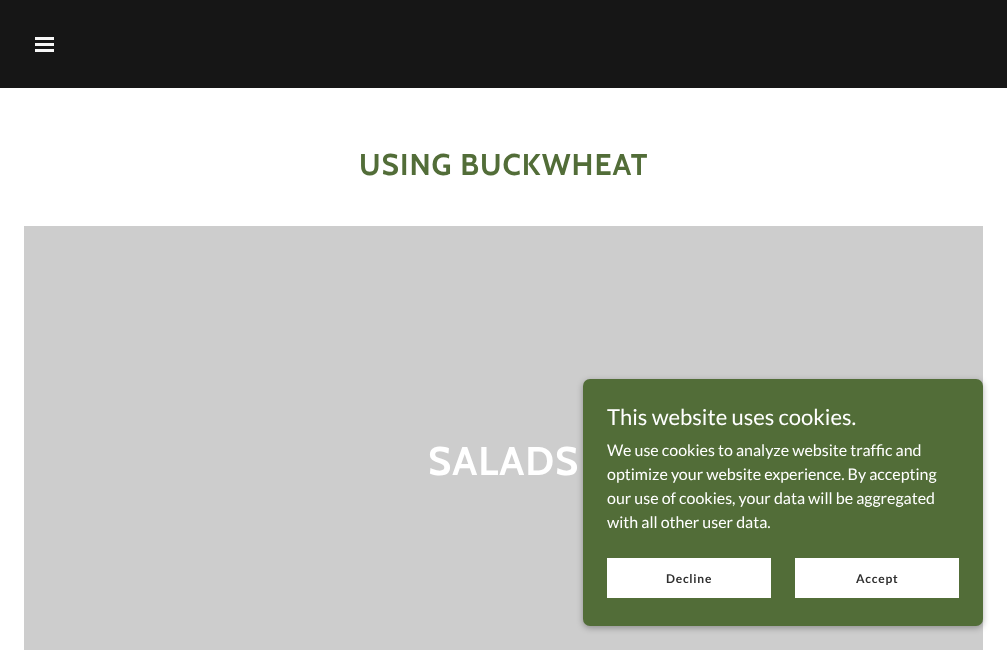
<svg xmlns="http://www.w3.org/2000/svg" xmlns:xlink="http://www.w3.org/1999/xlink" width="1007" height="650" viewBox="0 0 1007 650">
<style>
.cls-1{font:bold 30px Cabin;letter-spacing:1px;fill:#526d38}
.cls-2{font:bold 40px Cabin;letter-spacing:1px;fill:#ffffff}
.cls-3{font:22px Lato;fill:#ffffff}
.cls-4{font:16px Lato;fill:#ffffff}
.cls-5{font:bold 12px Lato;letter-spacing:0.75px;fill:#303030}
</style>
<rect width="100%" height="100%" fill="#161616"/>
<rect fill="#f7f7f7" x="35" y="37" width="19" height="3"/>
<rect fill="#f7f7f7" x="35" y="43" width="19" height="3"/>
<rect fill="#f7f7f7" x="35" y="49" width="19" height="3"/>
<rect fill="#ffffff" x="0" y="88" width="1007" height="562"/>
<rect fill="#cdcdcd" x="24" y="226" width="959" height="424"/>
<rect fill="#000000" fill-opacity="0.3" filter="blur(3px)" x="583" y="381" width="400" height="247" rx="7"/>
<rect fill="#526d38" x="583" y="379" width="400" height="247" rx="7"/>
<rect fill="#ffffff" x="607" y="558" width="164" height="40"/>
<rect fill="#ffffff" x="795" y="558" width="164" height="40"/>
<text class="cls-1" x="359" y="175">USING BUCKWHEAT</text>
<text class="cls-2" x="428" y="475">SALADS</text>
<text class="cls-3" x="607" y="425">This website uses cookies.</text>
<text class="cls-4"><tspan x="607" y="456">We use cookies to analyze website traffic and</tspan><tspan x="607" y="480">optimize your website experience. By accepting</tspan><tspan x="607" y="504">our use of cookies, your data will be aggregated</tspan><tspan x="607" y="528">with all other user data.</tspan></text>
<text class="cls-5" x="666" y="583">Decline</text>
<text class="cls-5" x="856" y="583">Accept</text>
</svg>
